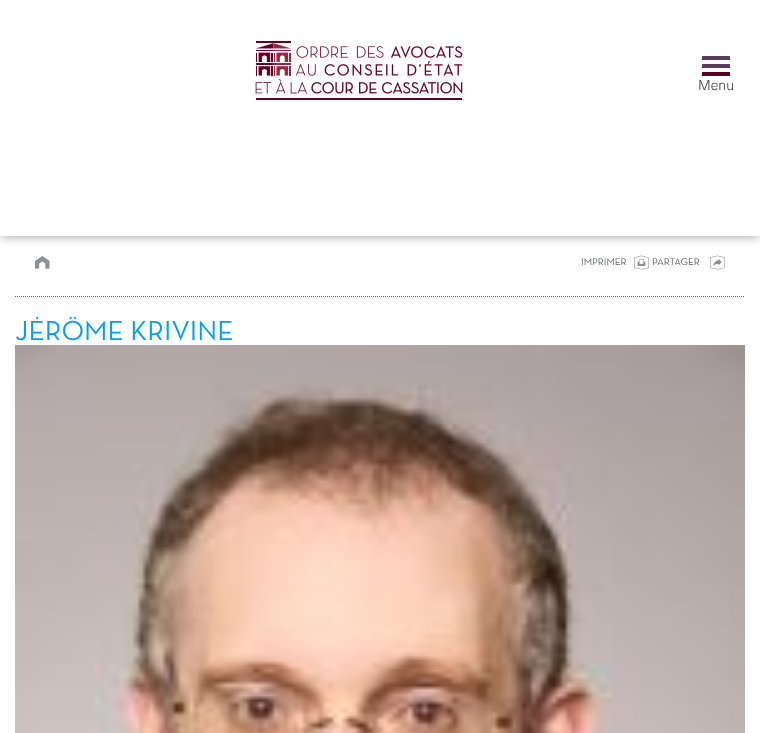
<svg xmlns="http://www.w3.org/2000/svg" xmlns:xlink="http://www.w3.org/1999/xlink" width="760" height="733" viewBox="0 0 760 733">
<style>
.cls-1{font:300 14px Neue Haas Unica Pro;fill:#3b3b3b}
.cls-2{font:10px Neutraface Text;fill:#5f6168}
.cls-3{font:28px Neutraface Text;fill:#009ef2}
</style>
<defs>
<clipPath id="clip1"><rect x="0" y="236" width="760" height="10"/></clipPath>
<clipPath id="clip2"><rect x="15" y="317" width="730" height="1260"/></clipPath>
</defs>
<rect width="100%" height="100%" fill="#ffffff"/>
<g clip-path="url(#clip1)">
<rect fill="#000000" fill-opacity="0.4" filter="blur(6px)" x="0" y="0" width="760" height="236"/>
</g>
<image xlink:href="image0.png" x="255" y="41" width="208" height="59"/>
<rect fill="#580021" x="702" y="72" width="28" height="4"/>
<rect fill="#5a3b5d" x="702" y="56" width="28" height="4"/>
<rect fill="#5a3b5d" x="702" y="64" width="28" height="4"/>
<path fill="none" stroke="#5f6168" stroke-dasharray="1 1" d="M15 296.5H745"/>
<image xlink:href="image1.png" x="35" y="256" width="15" height="13"/>
<image xlink:href="image2.png" x="634" y="255" width="15" height="15"/>
<image xlink:href="image3.png" x="710" y="255" width="15" height="15"/>
<image xlink:href="image4.png" x="15" y="345" width="730" height="388"/>
<text class="cls-1" x="698" y="90">Menu</text>
<text class="cls-2" x="581" y="265">IMPRIMER</text>
<text class="cls-2" x="652" y="265">PARTAGER</text>
<g clip-path="url(#clip2)">
<text class="cls-3" x="15" y="340">JÉRÔME KRIVINE</text>
</g>
</svg>
